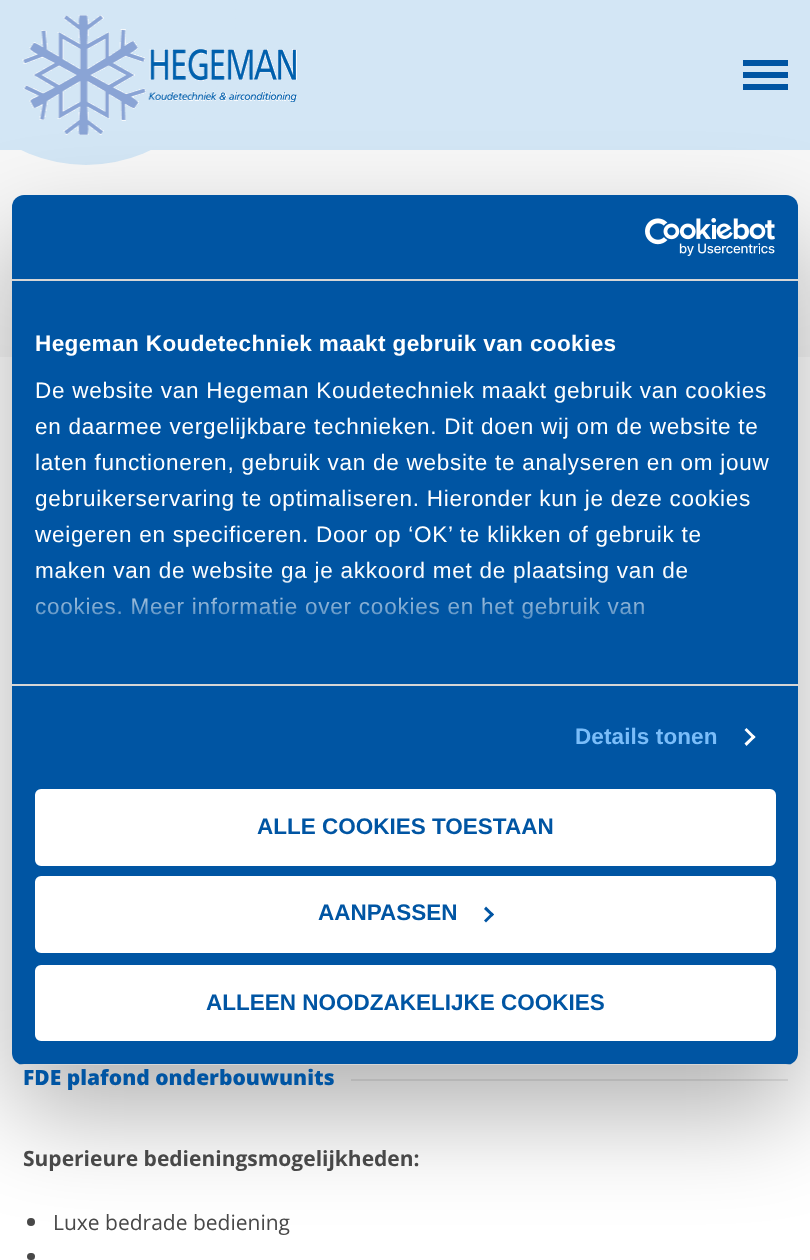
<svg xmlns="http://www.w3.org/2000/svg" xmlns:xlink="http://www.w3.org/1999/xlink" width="810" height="1260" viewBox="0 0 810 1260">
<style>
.cls-1{font:bold 22.5px Liberation Sans;letter-spacing:0.4px;fill:#ffffff}
.cls-2{font:22.5px Liberation Sans;letter-spacing:0.75px;fill:#ffffff}
.cls-3{font:bold 22.5px Liberation Sans;letter-spacing:0.1px;fill:#7abdf9}
.cls-4{font:bold 22.5px Liberation Sans;fill:#0055a3}
.cls-5{font:800 21px Open Sans;fill:#0055a3}
.cls-6{font:bold 21px Open Sans;fill:#484848}
.cls-7{font:21px Open Sans;fill:#484848}
</style>
<defs>
<clipPath id="clip1"><rect x="12" y="195" width="786" height="870" rx="12"/></clipPath>
<linearGradient id="g1" gradientUnits="userSpaceOnUse" x1="395" y1="684" x2="395" y2="572"><stop offset="0" stop-color="#0055a3"/><stop offset="0.5" stop-color="#0055a3" stop-opacity="0.8"/><stop offset="1" stop-color="#0055a3" stop-opacity="0"/></linearGradient>
</defs>
<rect width="100%" height="100%" fill="#ffffff"/>
<rect fill="#d3e6f5" x="0" y="0" width="810" height="150"/>
<rect fill="#f7f7f7" x="0" y="150" width="810" height="207"/>
<circle fill="#d3e6f5" cx="86" cy="15" r="150"/>
<image xlink:href="image0.png" x="22" y="15" width="275" height="120"/>
<rect fill="#0055a3" x="743" y="60" width="45" height="6"/>
<rect fill="#0055a3" x="743" y="72" width="45" height="6"/>
<rect fill="#0055a3" x="743" y="84" width="45" height="6"/>
<rect fill="#ebebeb" x="351" y="1079" width="437" height="2"/>
<circle fill="#484848" cx="31" cy="1222" r="4"/>
<rect fill="#484848" x="27" y="1253" width="8" height="7" rx="3.5"/>
<rect fill="#000000" fill-opacity="0.3" filter="blur(51px)" x="12" y="243" width="786" height="870" rx="12"/>
<rect fill="#0055a3" x="12" y="195" width="786" height="870" rx="12"/>
<rect fill="#d6d6d6" x="12" y="279" width="786" height="2"/>
<image xlink:href="image1.png" x="645" y="218" width="130" height="38"/>
<rect fill="#d6d6d6" x="12" y="684" width="786" height="2"/>
<path fill="#ffffff" d="M746.5 728L755.5 737L753.5 739L744.5 730Z"/>
<path fill="#ffffff" d="M753.5 735L755.5 737L746.5 746L744.5 743.5Z"/>
<g clip-path="url(#clip1)">
<rect fill="#d6d6d6" x="12" y="1064" width="786" height="1"/>
</g>
<rect fill="#ffffff" stroke="#ffffff" stroke-width="3" x="36.5" y="790.5" width="738" height="74" rx="4.5"/>
<rect fill="#ffffff" stroke="#ffffff" stroke-width="3" x="36.5" y="877.5" width="738" height="74" rx="4.5"/>
<path fill="#0055a3" d="M486 906.5L494 914.5L492 916.5L484 909Z"/>
<path fill="#0055a3" d="M492 912.5L494 914.5L486 922.5L484 920.5Z"/>
<rect fill="#ffffff" stroke="#ffffff" stroke-width="3" x="36.5" y="966.5" width="738" height="73" rx="4.5"/>
<text class="cls-1" x="35" y="351">Hegeman Koudetechniek maakt gebruik van cookies</text>
<text class="cls-2"><tspan x="35" y="398">De website van Hegeman Koudetechniek maakt gebruik van cookies</tspan><tspan x="35" y="434">en daarmee vergelijkbare technieken. Dit doen wij om de website te</tspan><tspan x="35" y="470">laten functioneren, gebruik van de website te analyseren en om jouw</tspan><tspan x="35" y="506">gebruikerservaring te optimaliseren. Hieronder kun je deze cookies</tspan><tspan x="35" y="542">weigeren en specificeren. Door op ‘OK’ te klikken of gebruik te</tspan><tspan x="35" y="578">maken van de website ga je akkoord met de plaatsing van de</tspan><tspan x="35" y="614">cookies. Meer informatie over cookies en het gebruik van</tspan></text>
<rect fill="url(#g1)" x="35" y="574" width="651" height="45"/>
<text class="cls-3" x="575" y="744">Details tonen</text>
<text class="cls-4" x="257" y="834">ALLE COOKIES TOESTAAN</text>
<text class="cls-4" x="318" y="920">AANPASSEN</text>
<text class="cls-4" x="206" y="1010">ALLEEN NOODZAKELIJKE COOKIES</text>
<text class="cls-5" x="23" y="1085">FDE plafond onderbouwunits</text>
<text class="cls-6" x="23" y="1166">Superieure bedieningsmogelijkheden:</text>
<text class="cls-7" x="53" y="1230">Luxe bedrade bediening</text>
</svg>
